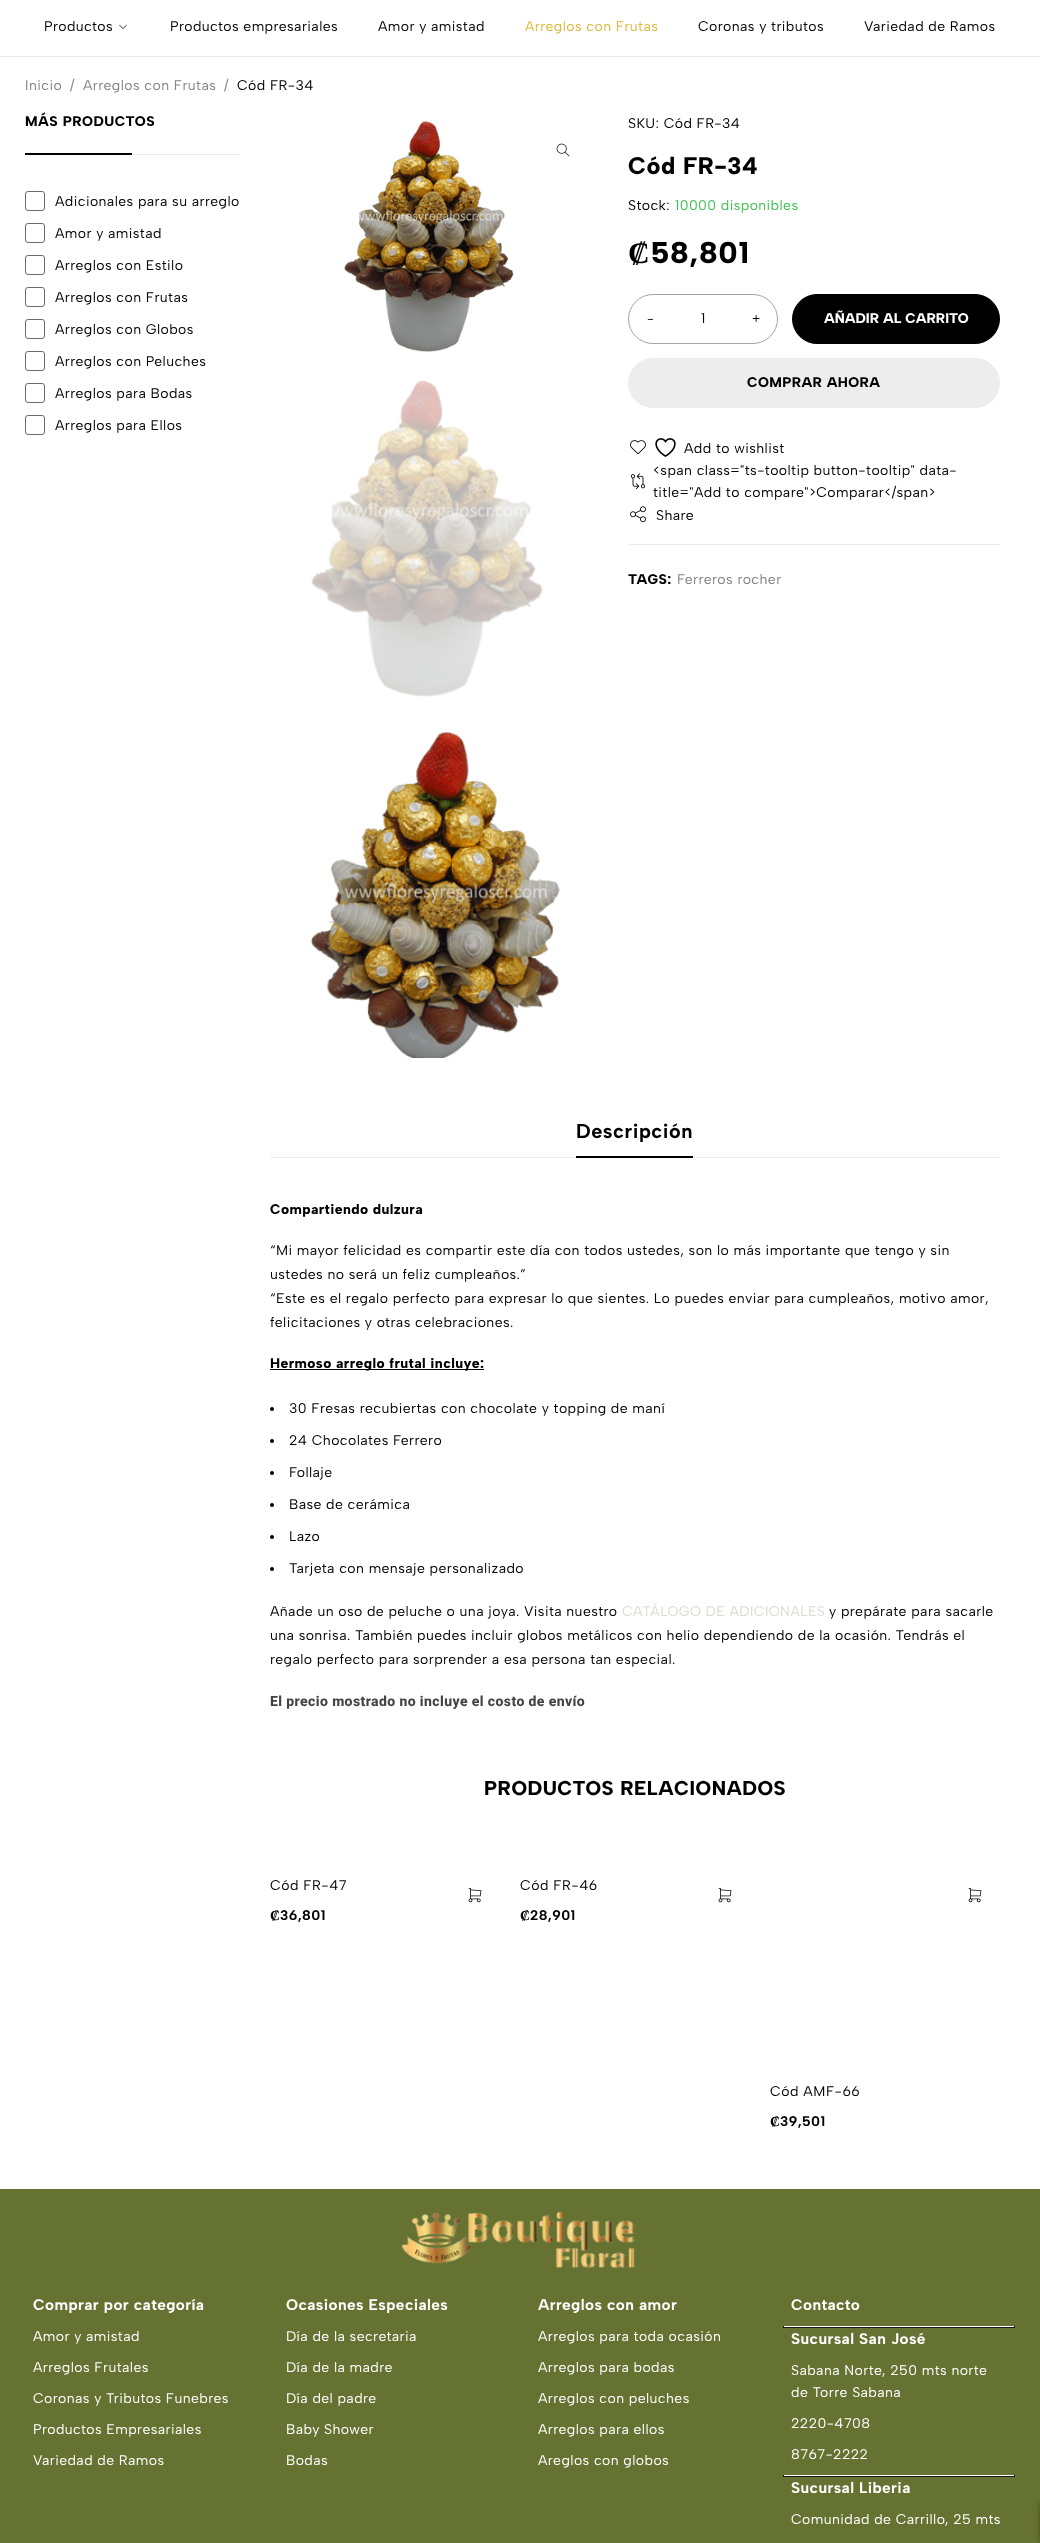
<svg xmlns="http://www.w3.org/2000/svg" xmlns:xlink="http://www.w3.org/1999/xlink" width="1040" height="2543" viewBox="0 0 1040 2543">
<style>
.cls-1{font:14px Albert Sans;letter-spacing:0.4px;fill:#000000}
.cls-2{font:14px Albert Sans;letter-spacing:0.4px;fill:#dcb93b}
.cls-3{font:14px Albert Sans;letter-spacing:0.4px;fill:#848484}
.cls-4{font:800 14px Albert Sans;letter-spacing:0.5px;fill:#000000}
.cls-5{font:800 24px Albert Sans;letter-spacing:0.5px;fill:#000000}
.cls-6{font:14px Albert Sans;letter-spacing:0.4px;fill:#40bf52}
.cls-7{font:bold 30px Liberation Serif;letter-spacing:0.75px;fill:#000000}
.cls-8{font:800 30px Albert Sans;letter-spacing:0.75px;fill:#000000}
.cls-9{font:13px Albert Sans;fill:#000000}
.cls-10{font:14px Albert Sans;fill:#000000}
.cls-11{font:800 14px Albert Sans;fill:#ffffff}
.cls-12{font:800 14px Albert Sans;letter-spacing:0.4px;fill:#000000}
.cls-13{font:bold 20px Albert Sans;letter-spacing:0.5px;fill:#000000}
.cls-14{font:14px Albert Sans;letter-spacing:0.4px;fill:#dcd9d0}
.cls-15{font:800 14px Roboto;letter-spacing:0.4px;fill:#444444}
.cls-16{font:800 20px Albert Sans;letter-spacing:0.5px;fill:#000000}
.cls-17{font:14px Albert Sans;letter-spacing:0.5px;fill:#000000}
.cls-18{font:bold 14px Liberation Serif;letter-spacing:0.4px;fill:#000000}
.cls-19{font:bold 14px Albert Sans;letter-spacing:0.4px;fill:#000000}
.cls-20{font:bold 15.4px Albert Sans;letter-spacing:0.4px;fill:#ffffff}
.cls-21{font:14px Albert Sans;letter-spacing:0.4px;fill:#ffffff}
</style>
<rect width="100%" height="100%" fill="#ffffff"/>
<image xlink:href="image0.png" x="119" y="24" width="8" height="5"/>
<rect fill="#ebebeb" x="0" y="56" width="1040" height="1"/>
<rect fill="#eaeaea" x="132" y="154" width="108" height="1"/>
<rect fill="#000000" x="25" y="153" width="107" height="2"/>
<rect fill="none" stroke="#6c6c6c" x="25.5" y="191.5" width="19" height="19" rx="2.5"/>
<rect fill="none" stroke="#6c6c6c" x="25.5" y="223.5" width="19" height="19" rx="2.5"/>
<rect fill="none" stroke="#6c6c6c" x="25.5" y="255.5" width="19" height="19" rx="2.5"/>
<rect fill="none" stroke="#6c6c6c" x="25.5" y="287.5" width="19" height="19" rx="2.5"/>
<rect fill="none" stroke="#6c6c6c" x="25.5" y="319.5" width="19" height="19" rx="2.5"/>
<rect fill="none" stroke="#6c6c6c" x="25.5" y="351.5" width="19" height="19" rx="2.5"/>
<rect fill="none" stroke="#6c6c6c" x="25.5" y="383.5" width="19" height="19" rx="2.5"/>
<rect fill="none" stroke="#6c6c6c" x="25.5" y="415.5" width="19" height="19" rx="2.5"/>
<image xlink:href="image1.png" x="344" y="120" width="170" height="232"/>
<image xlink:href="image2.png" x="556" y="143" width="14" height="14"/>
<image xlink:href="image3.png" x="311" y="380" width="232" height="317"/>
<image xlink:href="image4.png" x="310" y="732" width="250" height="326"/>
<rect fill="none" stroke="#a4a4a4" x="628.5" y="294.5" width="149" height="49" rx="24.5"/>
<rect fill="#000000" stroke="#000000" x="792.5" y="294.5" width="207" height="49" rx="24.5"/>
<rect fill="#ededed" stroke="#ededed" x="628.5" y="358.5" width="371" height="49" rx="24.5"/>
<image xlink:href="image5.png" x="630" y="440" width="16" height="15"/>
<image xlink:href="image6.png" x="655" y="438" width="21" height="19"/>
<image xlink:href="image7.png" x="630" y="473" width="16" height="17"/>
<image xlink:href="image8.png" x="630" y="506" width="16" height="17"/>
<rect fill="#ebebeb" x="628" y="544" width="372" height="1"/>
<rect fill="#ebebeb" x="270" y="1157" width="730" height="1"/>
<rect fill="#000000" x="576" y="1156" width="117" height="2"/>
<rect fill="#000000" x="270" y="1369" width="214" height="1"/>
<circle fill="#000000" cx="272" cy="1409" r="2"/>
<circle fill="#000000" cx="272" cy="1441" r="2"/>
<circle fill="#000000" cx="272" cy="1473" r="2"/>
<circle fill="#000000" cx="272" cy="1505" r="2"/>
<circle fill="#000000" cx="272" cy="1537" r="2"/>
<circle fill="#000000" cx="272" cy="1569" r="2"/>
<image xlink:href="image9.png" x="468" y="1888" width="14" height="15"/>
<image xlink:href="image9.png" x="718" y="1888" width="14" height="15"/>
<image xlink:href="image9.png" x="968" y="1888" width="14" height="15"/>
<rect fill="#667231" x="0" y="2189" width="1040" height="354"/>
<image xlink:href="image10.png" x="401" y="2211" width="235" height="58"/>
<rect fill="#ffffff" x="783" y="2326" width="232" height="1"/>
<rect fill="#181818" x="1014" y="2326" width="1" height="2"/>
<rect fill="#181818" x="783" y="2327" width="232" height="1"/>
<rect fill="#101010" x="783" y="2326" width="1" height="2"/>
<rect fill="#ffffff" x="783" y="2475" width="232" height="1"/>
<rect fill="#181818" x="1014" y="2475" width="1" height="2"/>
<rect fill="#181818" x="783" y="2476" width="232" height="1"/>
<rect fill="#101010" x="783" y="2475" width="1" height="2"/>
<rect fill="#242424" fill-opacity="0.5" filter="blur(2.5px)" x="1040" y="2503" width="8" height="40"/>
<text class="cls-1" x="44" y="31">Productos</text>
<text class="cls-1" x="170" y="31">Productos empresariales</text>
<text class="cls-1" x="378" y="31">Amor y amistad</text>
<text class="cls-2" x="525" y="31">Arreglos con Frutas</text>
<text class="cls-1" x="698" y="31">Coronas y tributos</text>
<text class="cls-1" x="864" y="31">Variedad de Ramos</text>
<text class="cls-3" x="25" y="90">Inicio</text>
<text class="cls-3" x="70" y="90">/</text>
<text class="cls-3" x="83" y="90">Arreglos con Frutas</text>
<text class="cls-3" x="224" y="90">/</text>
<text class="cls-1" x="237" y="90">Cód FR-34</text>
<text class="cls-4" x="25" y="126">MÁS PRODUCTOS</text>
<text class="cls-1" x="55" y="206">Adicionales para su arreglo</text>
<text class="cls-1" x="55" y="238">Amor y amistad</text>
<text class="cls-1" x="55" y="270">Arreglos con Estilo</text>
<text class="cls-1" x="55" y="302">Arreglos con Frutas</text>
<text class="cls-1" x="55" y="334">Arreglos con Globos</text>
<text class="cls-1" x="55" y="366">Arreglos con Peluches</text>
<text class="cls-1" x="55" y="398">Arreglos para Bodas</text>
<text class="cls-1" x="55" y="430">Arreglos para Ellos</text>
<text class="cls-1" x="628" y="128">SKU: Cód FR-34</text>
<text class="cls-5" x="628" y="174">Cód FR-34</text>
<text class="cls-1" x="628" y="210">Stock:</text>
<text class="cls-6" x="675" y="210">10000 disponibles</text>
<text class="cls-7" x="628" y="263">₡</text>
<text class="cls-8" x="651" y="263">58,801</text>
<text class="cls-9" x="647" y="323">-</text>
<text class="cls-10" x="701" y="323">1</text>
<text class="cls-9" x="752" y="323">+</text>
<text class="cls-11" x="824" y="323">AÑADIR AL CARRITO</text>
<text class="cls-12" x="747" y="387">COMPRAR AHORA</text>
<text class="cls-1" x="684" y="453">Add to wishlist</text>
<text class="cls-1"><tspan x="653" y="475">&lt;span class="ts-tooltip button-tooltip" data-</tspan><tspan x="653" y="497">title="Add to compare"&gt;Comparar&lt;/span&gt;</tspan></text>
<text class="cls-1" x="656" y="520">Share</text>
<text class="cls-12" x="628" y="584">TAGS:</text>
<text class="cls-3" x="677" y="584">Ferreros rocher</text>
<text class="cls-13" x="576" y="1138">Descripción</text>
<text class="cls-12" x="270" y="1214">Compartiendo dulzura</text>
<text class="cls-1"><tspan x="270" y="1255">“Mi mayor felicidad es compartir este día con todos ustedes, son lo más importante que tengo y sin</tspan><tspan x="270" y="1279">ustedes no será un feliz cumpleaños.”</tspan><tspan x="270" y="1303">“Este es el regalo perfecto para expresar lo que sientes. Lo puedes enviar para cumpleaños, motivo amor,</tspan><tspan x="270" y="1327">felicitaciones y otras celebraciones.</tspan></text>
<text class="cls-12" x="270" y="1368">Hermoso arreglo frutal incluye:</text>
<text class="cls-1" x="289" y="1413">30 Fresas recubiertas con chocolate y topping de maní</text>
<text class="cls-1" x="289" y="1445">24 Chocolates Ferrero</text>
<text class="cls-1" x="289" y="1477">Follaje</text>
<text class="cls-1" x="289" y="1509">Base de cerámica</text>
<text class="cls-1" x="289" y="1541">Lazo</text>
<text class="cls-1" x="289" y="1573">Tarjeta con mensaje personalizado</text>
<text class="cls-1" x="270" y="1616">Añade un oso de peluche o una joya. Visita nuestro</text>
<text class="cls-14" x="622" y="1616">CATÁLOGO DE ADICIONALES</text>
<text class="cls-1" x="829" y="1616">y prepárate para sacarle</text>
<text class="cls-1"><tspan x="270" y="1640">una sonrisa. También puedes incluir globos metálicos con helio dependiendo de la ocasión. Tendrás el</tspan><tspan x="270" y="1664">regalo perfecto para sorprender a esa persona tan especial.</tspan></text>
<text class="cls-15" x="270" y="1706">El precio mostrado no incluye el costo de envío</text>
<text class="cls-16" x="484" y="1795">PRODUCTOS RELACIONADOS</text>
<text class="cls-17" x="270" y="1890">Cód FR-47</text>
<text class="cls-18" x="270" y="1920">₡</text>
<text class="cls-19" x="280" y="1920">36,801</text>
<text class="cls-17" x="520" y="1890">Cód FR-46</text>
<text class="cls-18" x="520" y="1920">₡</text>
<text class="cls-19" x="530" y="1920">28,901</text>
<text class="cls-17" x="770" y="2096">Cód AMF-66</text>
<text class="cls-18" x="770" y="2126">₡</text>
<text class="cls-19" x="780" y="2126">39,501</text>
<text class="cls-20" x="33" y="2310">Comprar por categoría</text>
<text class="cls-21" x="33" y="2341">Amor y amistad</text>
<text class="cls-21" x="33" y="2372">Arreglos Frutales</text>
<text class="cls-21" x="33" y="2403">Coronas y Tributos Funebres</text>
<text class="cls-21" x="33" y="2434">Productos Empresariales</text>
<text class="cls-21" x="33" y="2465">Variedad de Ramos</text>
<text class="cls-20" x="286" y="2310">Ocasiones Especiales</text>
<text class="cls-21" x="286" y="2341">Día de la secretaria</text>
<text class="cls-21" x="286" y="2372">Día de la madre</text>
<text class="cls-21" x="286" y="2403">Día del padre</text>
<text class="cls-21" x="286" y="2434">Baby Shower</text>
<text class="cls-21" x="286" y="2465">Bodas</text>
<text class="cls-20" x="538" y="2310">Arreglos con amor</text>
<text class="cls-21" x="538" y="2341">Arreglos para toda ocasión</text>
<text class="cls-21" x="538" y="2372">Arreglos para bodas</text>
<text class="cls-21" x="538" y="2403">Arreglos con peluches</text>
<text class="cls-21" x="538" y="2434">Arreglos para ellos</text>
<text class="cls-21" x="538" y="2465">Areglos con globos</text>
<text class="cls-20" x="791" y="2310">Contacto</text>
<text class="cls-20" x="791" y="2344">Sucursal San José</text>
<text class="cls-21"><tspan x="791" y="2375">Sabana Norte, 250 mts norte</tspan><tspan x="791" y="2397">de Torre Sabana</tspan></text>
<text class="cls-21" x="791" y="2428">2220-4708</text>
<text class="cls-21" x="791" y="2459">8767-2222</text>
<text class="cls-20" x="791" y="2493">Sucursal Liberia</text>
<text class="cls-21" x="791" y="2524">Comunidad de Carrillo, 25 mts</text>
</svg>
